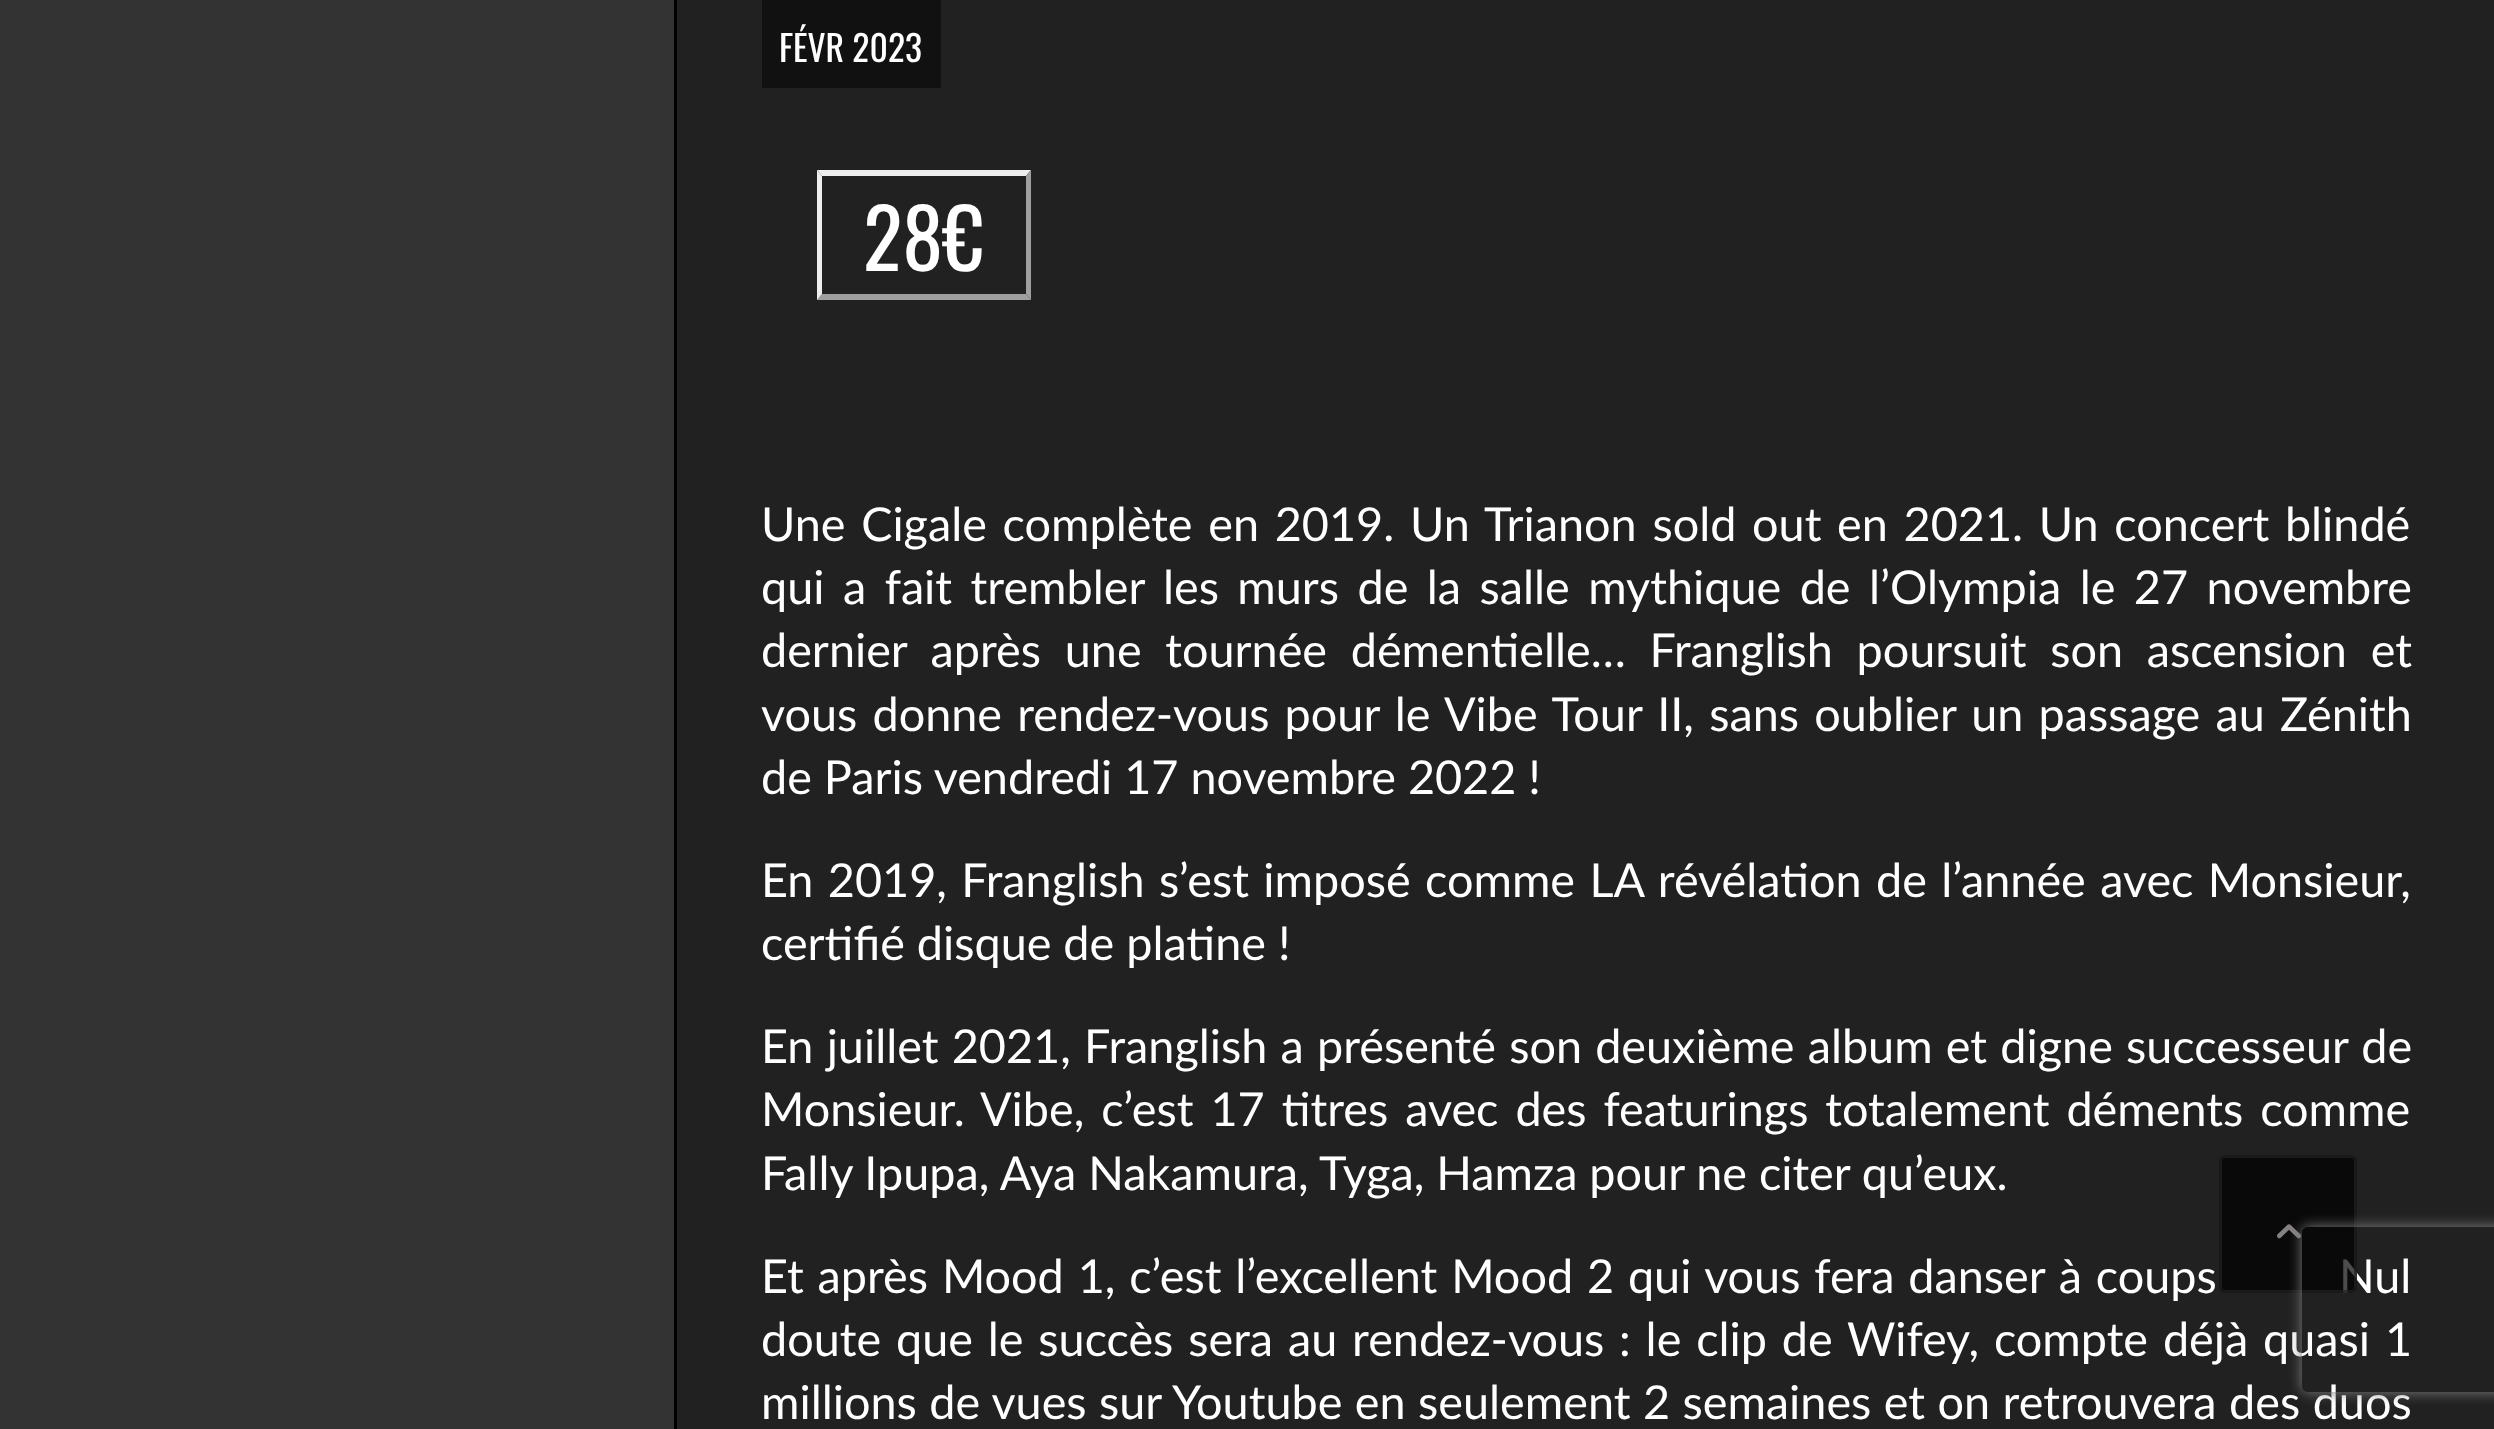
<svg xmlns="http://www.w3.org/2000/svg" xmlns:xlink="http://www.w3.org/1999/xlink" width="2494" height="1429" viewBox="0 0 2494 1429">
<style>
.cls-1{font:35.75px Oswald;fill:#ffffff}
.cls-2{font:82px Oswald;fill:#ffffff}
.cls-3{font:46.75px Lato;fill:#ffffff}
</style>
<defs>
<clipPath id="clip1"><path d="M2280 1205H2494V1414H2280ZM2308 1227H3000C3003.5 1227 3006 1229.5 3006 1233V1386C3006 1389.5 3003.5 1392 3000 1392H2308C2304.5 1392 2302 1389.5 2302 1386V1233C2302 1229.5 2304.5 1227 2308 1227Z" clip-rule="evenodd"/></clipPath>
</defs>
<rect width="100%" height="100%" fill="#333333"/>
<rect fill="#000000" x="674" y="0" width="3" height="1429"/>
<rect fill="#212121" x="677" y="0" width="1817" height="1429"/>
<rect fill="#111111" x="762" y="0" width="179" height="88"/>
<path fill="#eeeeee" d="M817 170H1031L1026 176H822Z"/>
<path fill="#9f9f9f" d="M1031 170V300L1026 294V176Z"/>
<path fill="#9f9f9f" d="M1031 300H817L822 294H1026Z"/>
<path fill="#eeeeee" d="M817 300V170L822 176V294Z"/>
<text class="cls-1" x="779" y="62">FÉVR 2023</text>
<text class="cls-2" x="863" y="271">28€</text>
<text class="cls-3"><tspan x="761" y="541" word-spacing="3.75">Une Cigale complète en 2019. Un Trianon sold out en 2021. Un concert blindé</tspan><tspan x="761" y="604" word-spacing="6.5">qui a fait trembler les murs de la salle mythique de l’Olympia le 27 novembre</tspan><tspan x="761" y="667" word-spacing="11.75">dernier après une tournée démentielle… Franglish poursuit son ascension et</tspan><tspan x="761" y="731" word-spacing="3.25">vous donne rendez-vous pour le Vibe Tour II, sans oublier un passage au Zénith</tspan><tspan x="761" y="794">de Paris vendredi 17 novembre 2022 !</tspan></text>
<text class="cls-3"><tspan x="761" y="897" word-spacing="2.4">En 2019, Franglish s’est imposé comme LA révélation de l’année avec Monsieur,</tspan><tspan x="761" y="960">certifié disque de platine !</tspan></text>
<text class="cls-3"><tspan x="761" y="1063" word-spacing="1.25">En juillet 2021, Franglish a présenté son deuxième album et digne successeur de</tspan><tspan x="761" y="1126" word-spacing="5">Monsieur. Vibe, c’est 17 titres avec des featurings totalement déments comme</tspan><tspan x="761" y="1190">Fally Ipupa, Aya Nakamura, Tyga, Hamza pour ne citer qu’eux.</tspan></text>
<text class="cls-3" x="761" y="1293" word-spacing="1.9">Et après Mood 1, c’est l’excellent Mood 2 qui vous fera danser à coups</text>
<text class="cls-3" x="2339" y="1293" word-spacing="1.9">Nul</text>
<text class="cls-3"><tspan x="761" y="1356" word-spacing="2.9">doute que le succès sera au rendez-vous : le clip de Wifey, compte déjà quasi 1</tspan><tspan x="761" y="1419" word-spacing="0.5">millions de vues sur Youtube en seulement 2 semaines et on retrouvera des duos</tspan></text>
<rect fill="#000000" fill-opacity="0.7" x="2219" y="1155" width="138" height="138" rx="6"/>
<rect fill="none" stroke="#222222" stroke-opacity="0.7" stroke-width="3" x="2220.5" y="1156.5" width="135" height="135" rx="4.5"/>
<image xlink:href="image0.png" x="2277" y="1224" width="24" height="15"/>
<g clip-path="url(#clip1)">
<rect fill="#808080" filter="blur(7px)" x="2302" y="1227" width="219" height="165" rx="6"/>
</g>
</svg>
